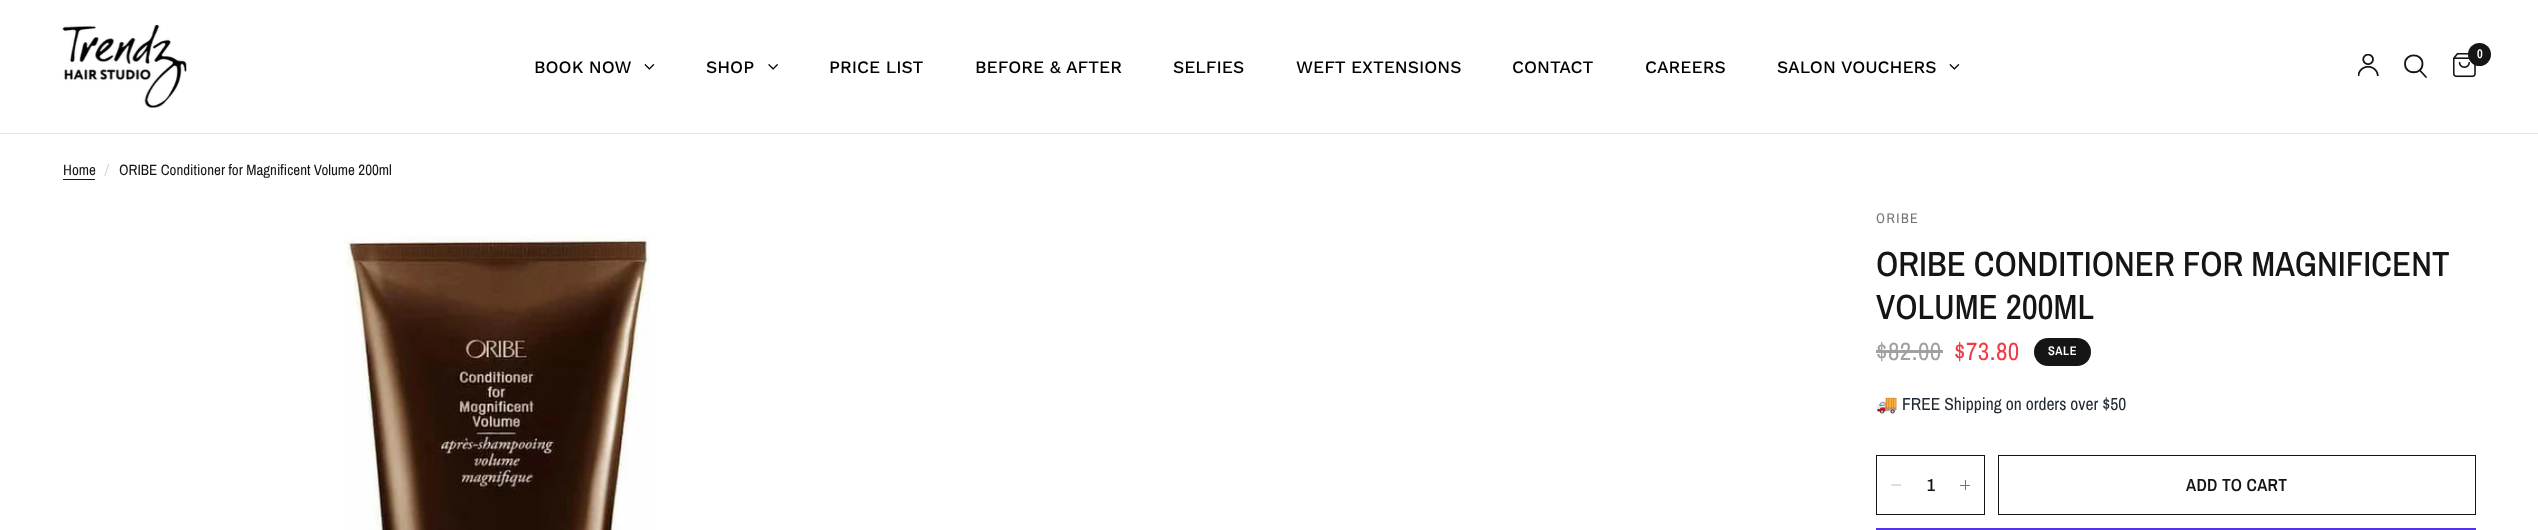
<svg xmlns="http://www.w3.org/2000/svg" xmlns:xlink="http://www.w3.org/1999/xlink" width="2538" height="530" viewBox="0 0 2538 530">
<style>
.cls-1{font:600 12.5px Archivo Narrow;fill:#ffffff}
.cls-2{font:500 17.5px Work Sans;fill:#000000}
.cls-3{font:15px Archivo Narrow;fill:#151515}
.cls-4{font:italic 15px Archivo Narrow;fill:#d0d0d0}
.cls-5{font:14px Archivo Narrow;letter-spacing:1.5px;fill:#737373}
.cls-6{font:500 35px Archivo Narrow;fill:#151515}
.cls-7{font:25px Archivo Narrow;letter-spacing:0.5px;fill:#a1a1a1}
.cls-8{font:25px Archivo Narrow;letter-spacing:0.5px;fill:#ee3b45}
.cls-9{font:600 12.5px Archivo Narrow;letter-spacing:0.5px;fill:#ffffff}
.cls-10{font:17.5px Noto Color Emoji;fill:#212b35}
.cls-11{font:17.5px Archivo Narrow;fill:#212b35}
.cls-12{font:600 17.5px Archivo Narrow;fill:#151515}
.cls-13{font:600 17.5px Archivo Narrow;letter-spacing:0.3px;fill:#151515}
</style>
<rect width="100%" height="100%" fill="#ffffff"/>
<rect fill="#e2e2e2" x="0" y="133" width="2538" height="1"/>
<image xlink:href="image0.png" x="62" y="25" width="125" height="83"/>
<image xlink:href="image1.png" x="2358" y="54" width="21" height="22"/>
<path fill="none" stroke="#151515" stroke-width="1.8" stroke-linecap="round" stroke-linejoin="round" d="M2420 70.5L2426 77M2422.5 64C2422.5 75 2405 75 2405 64C2405 52.5 2422.5 52.5 2422.5 64Z"/>
<image xlink:href="image2.png" x="2453" y="53" width="23" height="25"/>
<circle fill="#151515" cx="2479.5" cy="54.5" r="11.5"/>
<image xlink:href="image3.png" x="644" y="64" width="11" height="6"/>
<image xlink:href="image4.png" x="768" y="64" width="10" height="6"/>
<image xlink:href="image3.png" x="1949" y="64" width="11" height="6"/>
<rect fill="#151515" x="63" y="179" width="32" height="1"/>
<image xlink:href="image5.png" x="344" y="234" width="306" height="296"/>
<rect fill="#a1a1a1" x="1876" y="350" width="67" height="3"/>
<rect fill="#151515" x="2034" y="338" width="57" height="28" rx="14"/>
<rect fill="none" stroke="#151515" x="1876.5" y="455.5" width="108" height="59"/>
<path fill="#b9b9b9" d="M1891.5 485.5L1891 484.5H1901V485.5Z"/>
<rect fill="#737373" x="1965" y="480" width="1" height="10"/>
<rect fill="#737373" x="1960" y="485" width="10" height="1"/>
<rect fill="none" stroke="#151515" x="1998.5" y="455.5" width="477" height="59"/>
<rect fill="#5433eb" x="1876" y="528" width="600" height="2"/>
<text class="cls-1" x="2477" y="58">0</text>
<text class="cls-2" x="534" y="73">BOOK NOW</text>
<text class="cls-2" x="706" y="73">SHOP</text>
<text class="cls-2" x="829" y="73">PRICE LIST</text>
<text class="cls-2" x="975" y="73">BEFORE &amp; AFTER</text>
<text class="cls-2" x="1173" y="73">SELFIES</text>
<text class="cls-2" x="1296" y="73">WEFT EXTENSIONS</text>
<text class="cls-2" x="1512" y="73">CONTACT</text>
<text class="cls-2" x="1645" y="73">CAREERS</text>
<text class="cls-2" x="1777" y="73">SALON VOUCHERS</text>
<text class="cls-3" x="63" y="175">Home</text>
<text class="cls-4" x="105" y="175">/</text>
<text class="cls-3" x="119" y="175">ORIBE Conditioner for Magnificent Volume 200ml</text>
<text class="cls-5" x="1876" y="223">ORIBE</text>
<text class="cls-6"><tspan x="1876" y="276">ORIBE CONDITIONER FOR MAGNIFICENT</tspan><tspan x="1876" y="319">VOLUME 200ML</tspan></text>
<text class="cls-7" x="1876" y="360">$82.00</text>
<text class="cls-8" x="1954" y="360">$73.80</text>
<text class="cls-9" x="2048" y="355">SALE</text>
<text class="cls-10" x="1876" y="410">🚚</text>
<text class="cls-11" x="1902" y="410">FREE Shipping on orders over $50</text>
<text class="cls-12" x="1927" y="491">1</text>
<text class="cls-13" x="2186" y="491">ADD TO CART</text>
</svg>
